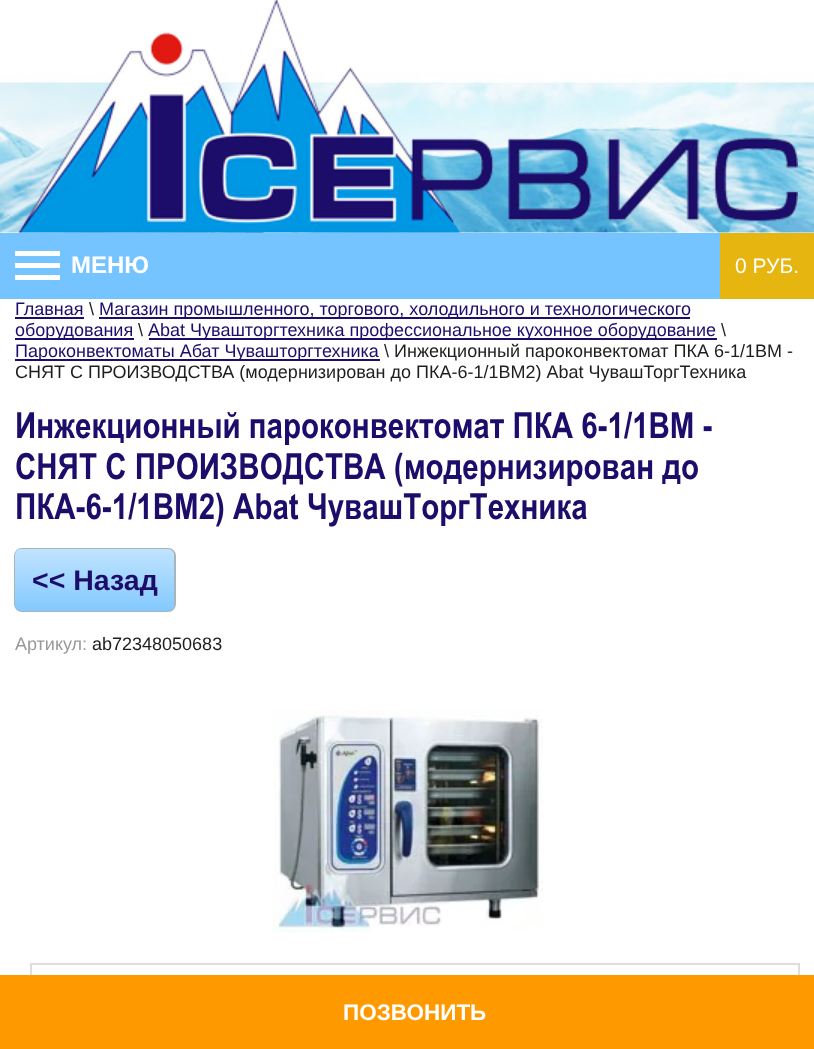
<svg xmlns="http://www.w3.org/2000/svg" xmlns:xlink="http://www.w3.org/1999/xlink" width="814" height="1049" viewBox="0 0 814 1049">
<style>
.cls-1{font:bold 24px Liberation Sans;fill:#ffffff}
.cls-2{font:21px Liberation Sans;fill:#ffffff}
.cls-3{font:18px Liberation Sans;fill:#1d0d6b}
.cls-4{font:18px Liberation Sans;fill:#1e1e1e}
.cls-5{font:bold 36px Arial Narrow;fill:#1d0d6b}
.cls-6{font:bold 28.5px Liberation Sans;fill:#1d0d6b}
.cls-7{font:18px Liberation Sans;fill:#999999}
.cls-8{font:bold 22.5px Liberation Sans;fill:#ffffff}
</style>
<defs>
<linearGradient id="g1" gradientUnits="userSpaceOnUse" x1="95" y1="549" x2="95" y2="611"><stop offset="0" stop-color="#c1e4ff"/><stop offset="1" stop-color="#83c9ff"/></linearGradient>
</defs>
<rect width="100%" height="100%" fill="#ffffff"/>
<image xlink:href="image0.png" x="0" y="72" width="814" height="161"/>
<image xlink:href="image1.png" x="18" y="0" width="780" height="233"/>
<rect fill="#75c4ff" x="0" y="233" width="720" height="66"/>
<rect fill="#ffffff" x="15" y="263" width="45" height="5"/>
<rect fill="#ffffff" x="15" y="251" width="45" height="5"/>
<rect fill="#ffffff" x="15" y="275" width="45" height="5"/>
<rect fill="#e7b50f" x="720" y="233" width="94" height="66"/>
<rect fill="#1d0d6b" x="15" y="317" width="69" height="2"/>
<rect fill="#1d0d6b" x="99" y="317" width="591" height="2"/>
<rect fill="#1d0d6b" x="15" y="338" width="119" height="2"/>
<rect fill="#1d0d6b" x="149" y="338" width="568" height="2"/>
<rect fill="#1d0d6b" x="15" y="359" width="365" height="2"/>
<rect fill="none" stroke="#a7b5bf" stroke-width="2" x="15" y="549" width="160" height="62" rx="7"/>
<rect fill="url(#g1)" x="15" y="549" width="159" height="62" rx="6"/>
<image xlink:href="image2.png" x="273" y="709" width="270" height="223"/>
<rect fill="none" stroke="#dedede" stroke-width="2" x="31" y="964" width="768" height="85"/>
<rect fill="#ff9900" x="0" y="975" width="814" height="74"/>
<text class="cls-1" x="71" y="273">МЕНЮ</text>
<text class="cls-2" x="735" y="273">0 РУБ.</text>
<text class="cls-3" x="15" y="315">Главная</text>
<text class="cls-4" x="89" y="315">\</text>
<text class="cls-3" x="99" y="315">Магазин промышленного, торгового, холодильного и технологического</text>
<text class="cls-3" x="15" y="336">оборудования</text>
<text class="cls-4" x="138" y="336">\</text>
<text class="cls-3" x="148" y="336">Abat Чувашторгтехника профессиональное кухонное оборудование</text>
<text class="cls-4" x="721" y="336">\</text>
<text class="cls-3" x="15" y="357">Пароконвектоматы Абат Чувашторгтехника</text>
<text class="cls-4" x="384" y="357">\ Инжекционный пароконвектомат ПКА 6-1/1ВМ -</text>
<text class="cls-4" x="15" y="378">СНЯТ С ПРОИЗВОДСТВА (модернизирован до ПКА-6-1/1ВМ2) Abat ЧувашТоргТехника</text>
<text class="cls-5"><tspan x="15" y="438">Инжекционный пароконвектомат ПКА 6-1/1ВМ -</tspan><tspan x="15" y="479">СНЯТ С ПРОИЗВОДСТВА (модернизирован до</tspan><tspan x="15" y="519">ПКА-6-1/1ВМ2) Abat ЧувашТоргТехника</tspan></text>
<text class="cls-6" x="32" y="590">&lt;&lt; Назад</text>
<text class="cls-7" x="15" y="650">Артикул:</text>
<text class="cls-4" x="92" y="650">ab72348050683</text>
<text class="cls-8" x="343" y="1020">ПОЗВОНИТЬ</text>
</svg>
